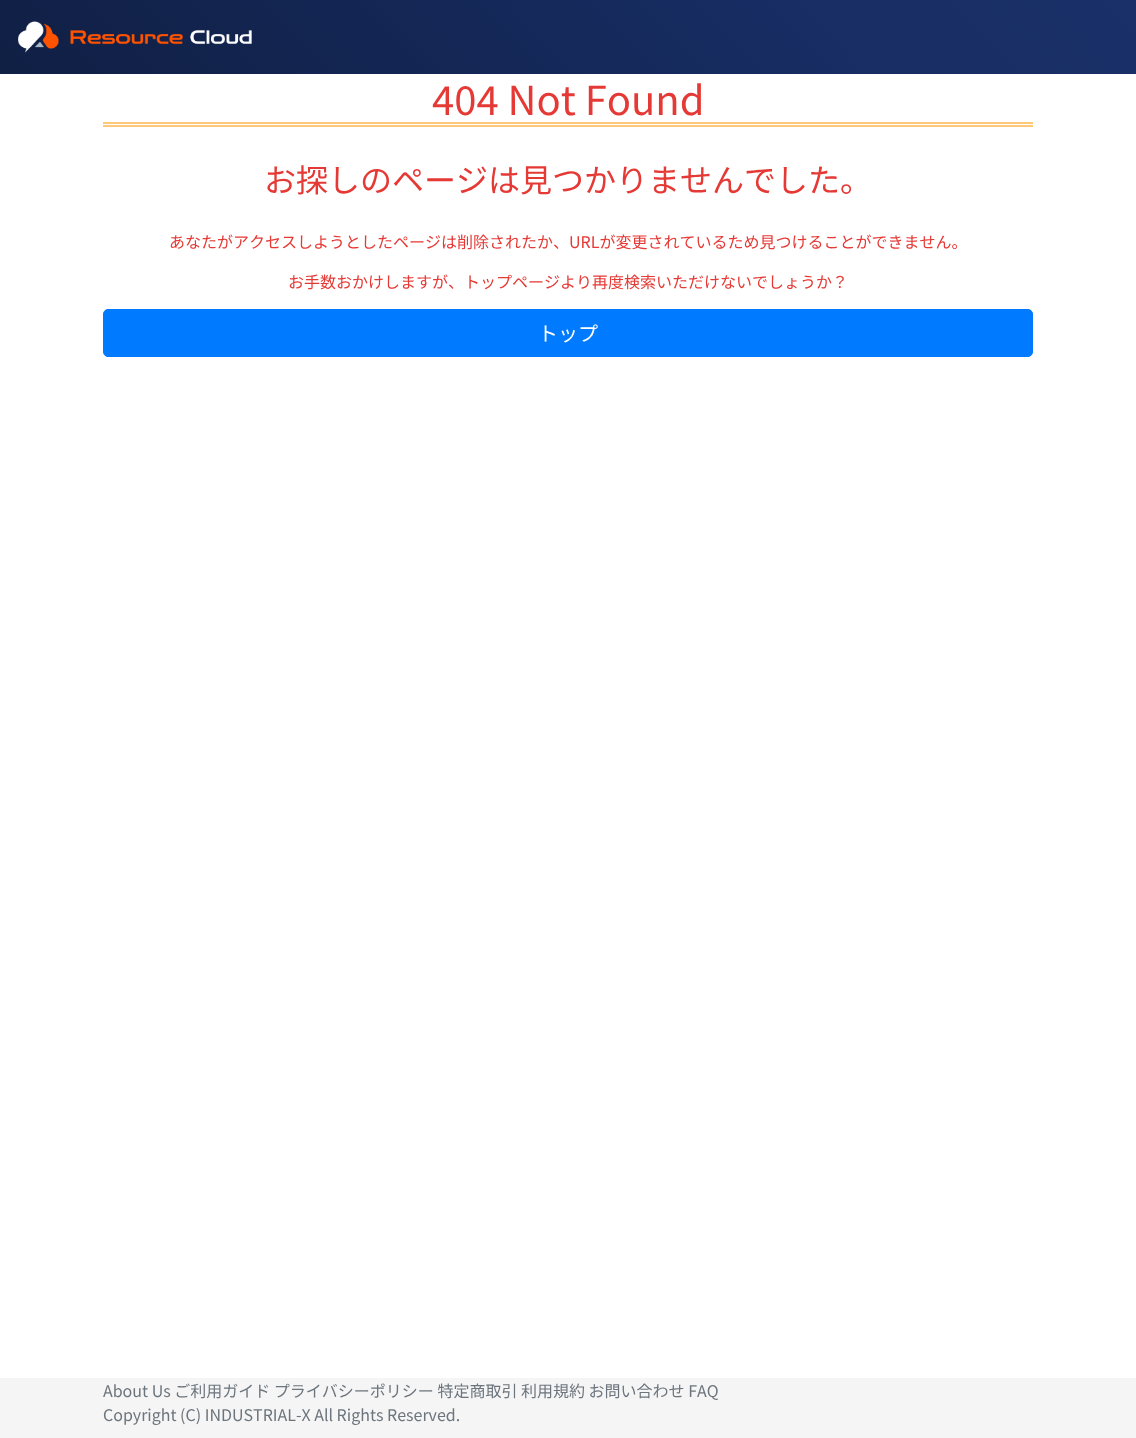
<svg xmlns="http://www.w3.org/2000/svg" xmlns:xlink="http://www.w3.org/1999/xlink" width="1136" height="1438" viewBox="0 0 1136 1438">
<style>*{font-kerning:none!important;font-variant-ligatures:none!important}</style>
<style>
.cls-1{font:40px Noto Sans JP;fill:#e53935}
.cls-2{font:32px Noto Sans JP;fill:#e53935}
.cls-3{font:16px Noto Sans JP;fill:#e53935}
.cls-4{font:20px Noto Sans JP;fill:#ffffff}
.cls-5{font:16px Noto Sans JP;fill:#6c757d}
</style>
<defs>
<linearGradient id="g1" gradientUnits="userSpaceOnUse" x1="266" y1="339" x2="871" y2="-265"><stop offset="0" stop-color="#101f44"/><stop offset="0.7" stop-color="#172d63"/><stop offset="1" stop-color="#1a3068"/></linearGradient>
</defs>
<rect width="100%" height="100%" fill="#ffffff"/>
<rect fill="url(#g1)" x="0" y="0" width="1136" height="74"/>
<image xlink:href="image0.png" x="18" y="21" width="234" height="32"/>
<rect fill="#ffc778" x="103" y="122" width="930" height="2"/>
<rect fill="#ffc778" x="103" y="125" width="930" height="2"/>
<rect fill="#007bff" stroke="#007bff" x="103.5" y="309.5" width="929" height="47" rx="4.5"/>
<rect fill="#f5f5f5" x="0" y="1378" width="1136" height="60"/>
<text class="cls-1" x="432" y="115">404 Not Found</text>
<text class="cls-2" x="264" y="192">お探しのページは見つかりませんでした。</text>
<text class="cls-3" x="169" y="248">あなたがアクセスしようとしたページは削除されたか、URLが変更されているため見つけることができません。</text>
<text class="cls-3" x="288" y="288">お手数おかけしますが、トップページより再度検索いただけないでしょうか？</text>
<text class="cls-4" x="538" y="341">トップ</text>
<text class="cls-5"><tspan x="103" y="1397">About Us ご利用ガイド プライバシーポリシー 特定商取引 利用規約 お問い合わせ FAQ</tspan><tspan x="103" y="1421">Copyright (C) INDUSTRIAL-X All Rights Reserved.</tspan></text>
</svg>
